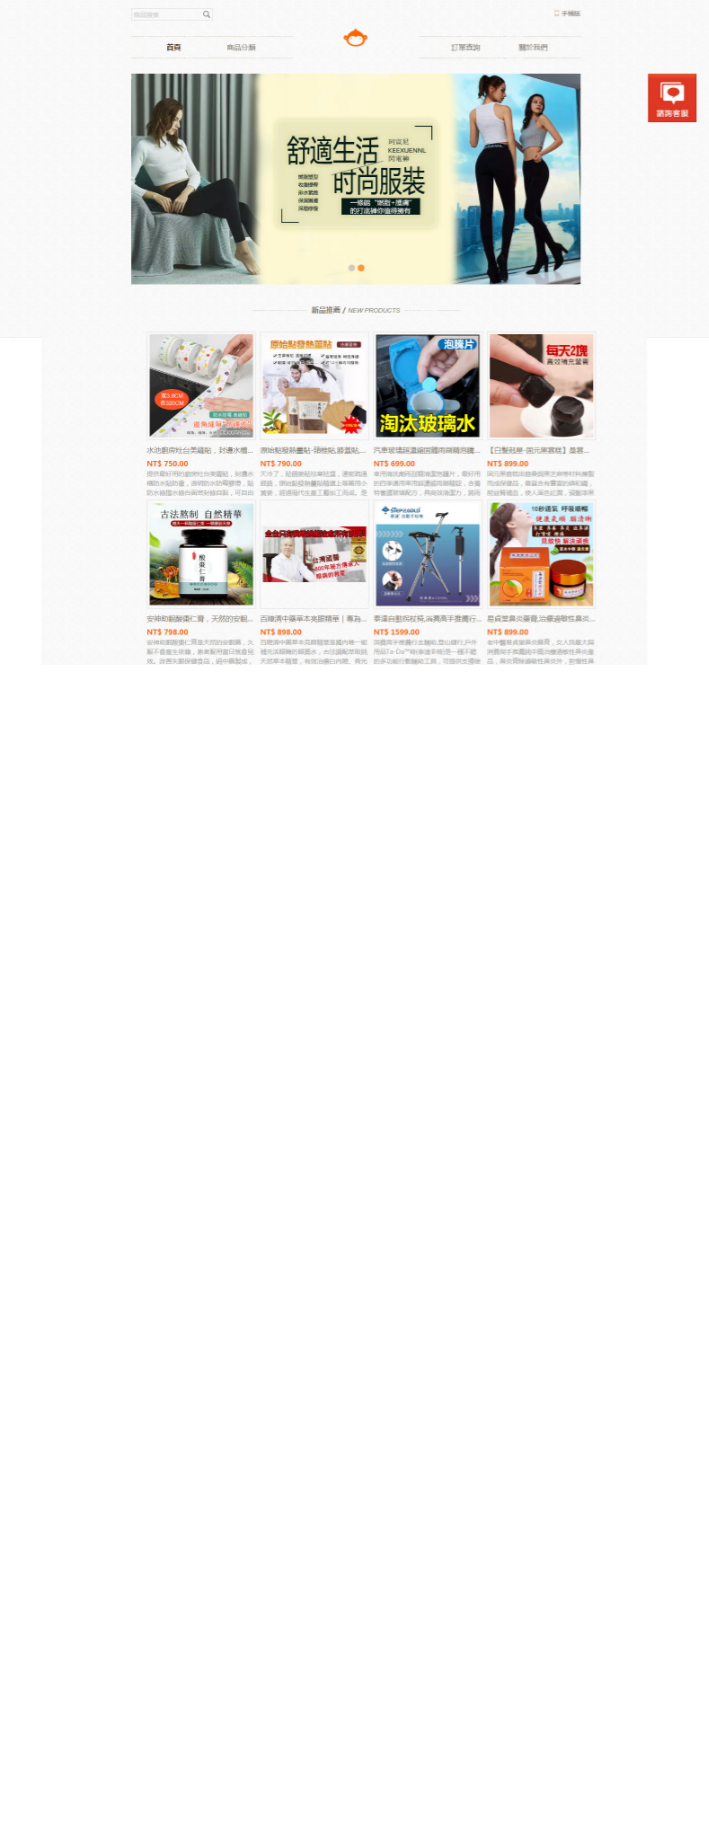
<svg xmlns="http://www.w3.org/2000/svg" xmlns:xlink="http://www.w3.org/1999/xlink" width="709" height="1847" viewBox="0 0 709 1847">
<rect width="100%" height="100%" fill="#ffffff"/>
<image xlink:href="image0.png" x="0" y="0" width="709" height="665"/>
</svg>
